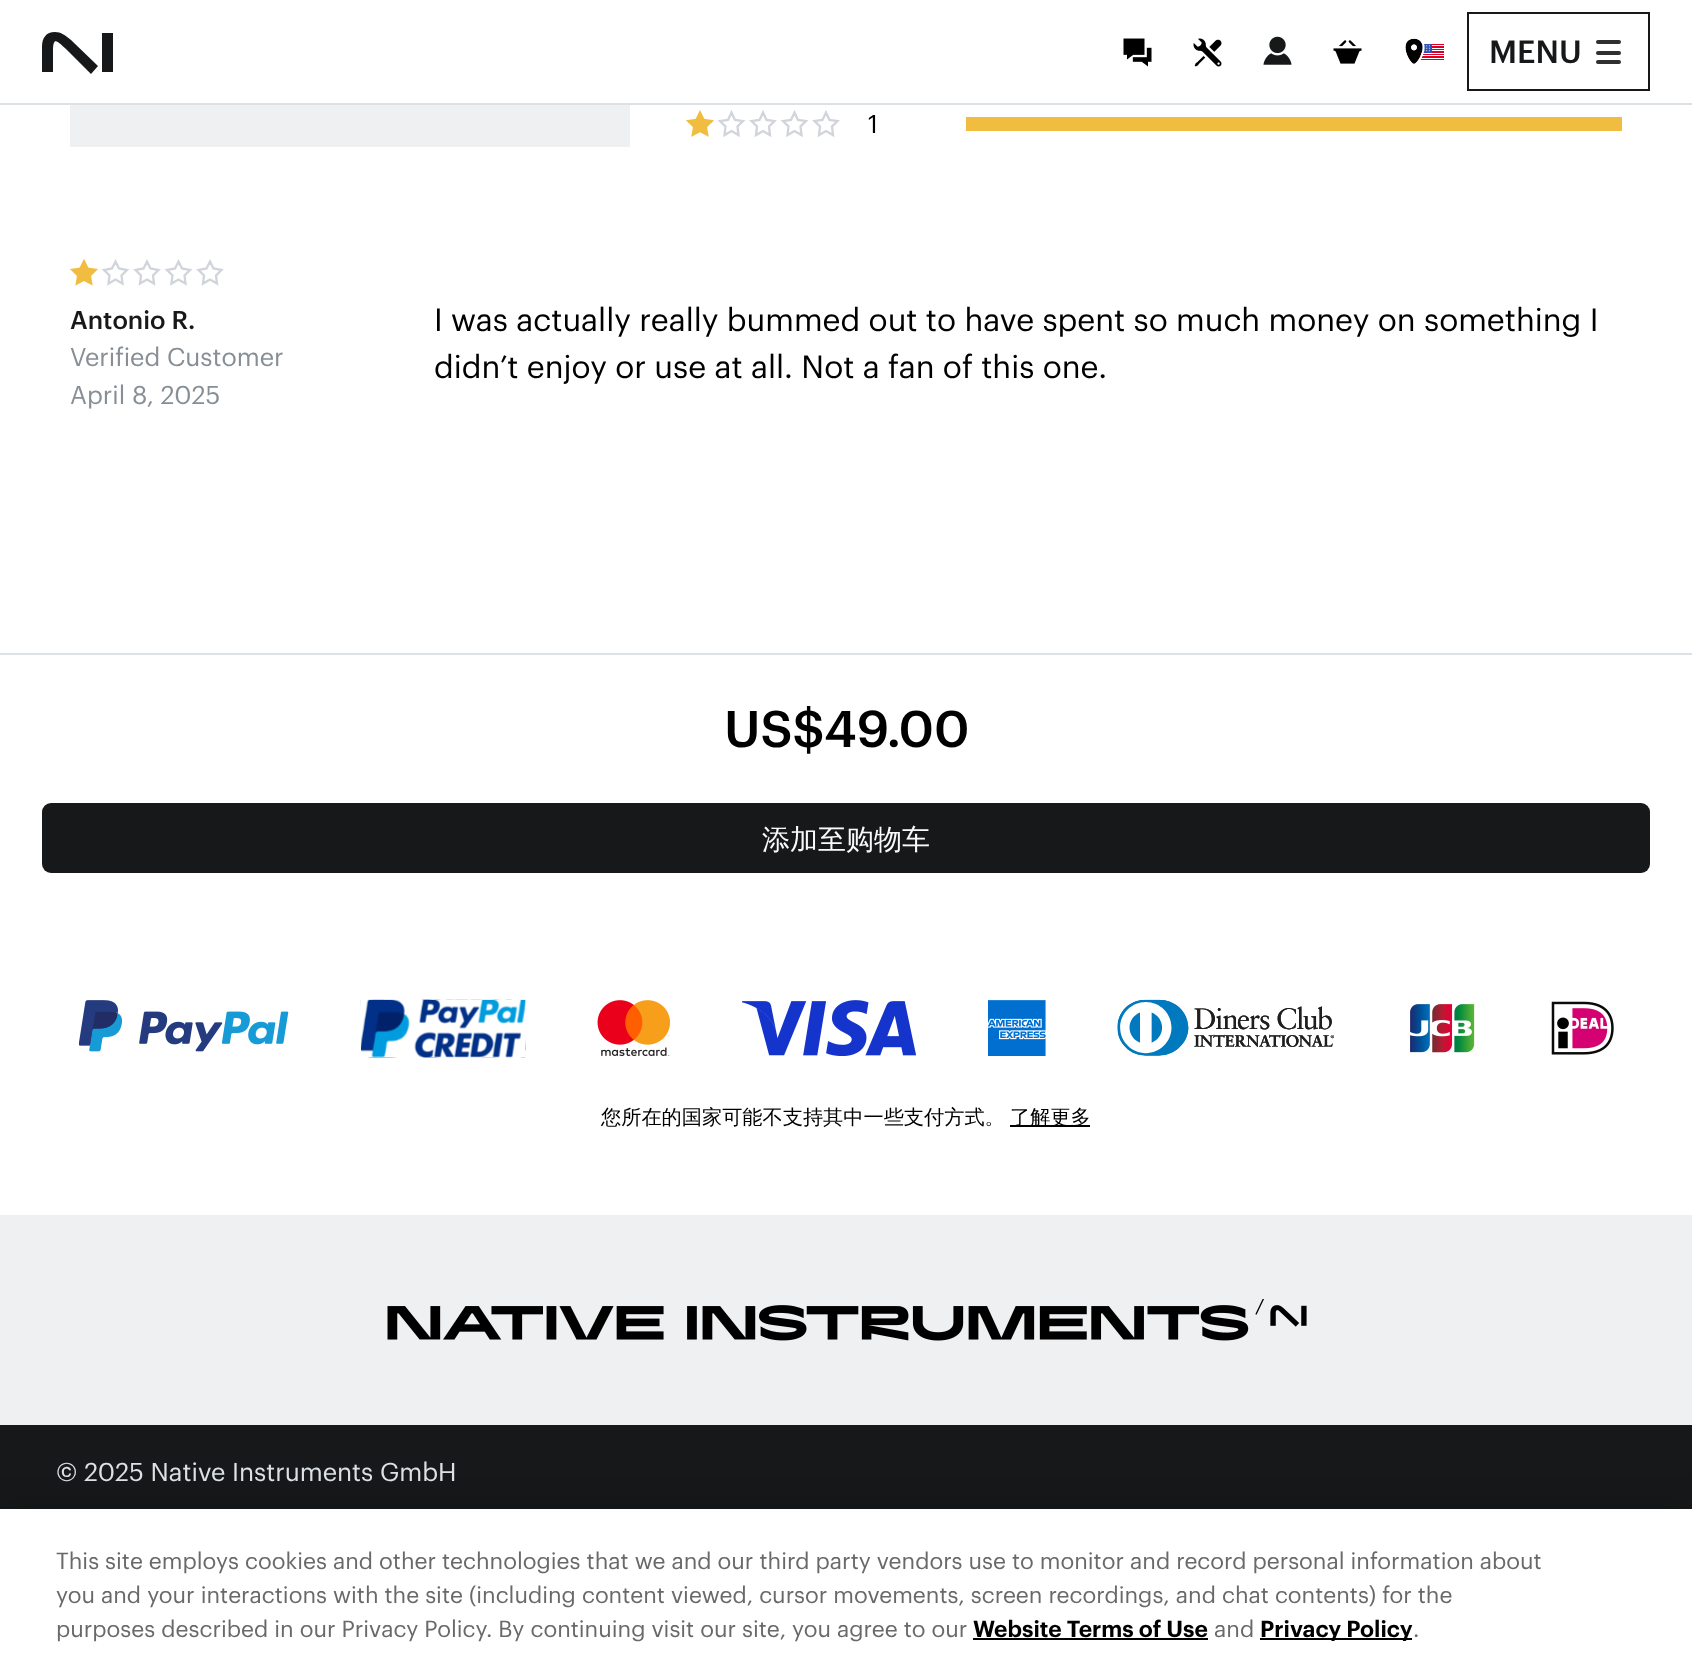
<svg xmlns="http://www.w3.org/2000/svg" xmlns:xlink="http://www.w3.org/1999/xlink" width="1692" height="1663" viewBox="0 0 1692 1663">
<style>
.cls-1{font:500 31.5px Graphik;fill:#161819}
.cls-2{font:25.25px Graphik;fill:#000000}
.cls-3{font:500 25.25px Graphik;fill:#161819}
.cls-4{font:25.25px Graphik;fill:#868e96}
.cls-5{font:31.5px Graphik;fill:#000000}
.cls-6{font:500 50.5px Graphik;fill:#000000}
.cls-7{font:500 28px WenQuanYi Zen Hei;fill:#f8f9fa}
.cls-8{font:500 20.2px WenQuanYi Zen Hei;fill:#000000}
.cls-9{font:25.25px Graphik;fill:#dce1e5}
.cls-10{font:22.75px Graphik;fill:#696969}
.cls-11{font:600 22.75px Graphik;fill:#000000}
</style>
<rect width="100%" height="100%" fill="#ffffff"/>
<rect fill="#dce1e5" x="0" y="103" width="1692" height="2"/>
<path fill="#161819" d="M91 74L98 66L71 40C65 35 61 32 55 32C46 32 42 38 42 47V72H53V51C53 35 58 42 66 49ZM102 72H113V33H102Z"/>
<image xlink:href="image0.png" x="1123" y="38" width="29" height="29"/>
<image xlink:href="image1.png" x="1193" y="38" width="29" height="29"/>
<image xlink:href="image2.png" x="1263" y="36" width="29" height="29"/>
<image xlink:href="image3.png" x="1333" y="40" width="29" height="24"/>
<image xlink:href="image5.png" x="1419" y="44" width="25" height="16"/>
<image xlink:href="image4.png" x="1405" y="38" width="20" height="26"/>
<rect fill="none" stroke="#161819" stroke-width="2" x="1468" y="13" width="181" height="77"/>
<rect fill="#303030" x="1596" y="40" width="25" height="4" rx="2"/>
<rect fill="#303030" x="1596" y="51" width="25" height="4" rx="2"/>
<rect fill="#303030" x="1596" y="60" width="25" height="4" rx="2"/>
<rect fill="#eef0f2" x="70" y="105" width="560" height="42"/>
<image xlink:href="image6.png" x="686" y="110" width="28" height="27"/>
<path fill="none" stroke="#d1d5db" stroke-width="2.3" d="M731.5 112.5L735 120L743 121L737.5 126.5L738.5 135L731.5 131L724.5 135L725.5 126.5L720 121L728 120ZM763 112.5L766.5 120L774.5 121L769 126.5L770 135L763 131L756 135L757 126.5L751.5 121L759.5 120Z"/>
<path fill="none" stroke="#d1d5db" stroke-width="2.3" d="M794.5 112.5L798 120L806 121L800.5 126.5L801.5 135L794.5 131L787.5 135L788.5 126.5L783 121L791 120ZM826 112.5L829.5 120L837.5 121L832 126.5L833 135L826 131L819 135L820 126.5L814.5 121L822.5 120Z"/>
<rect fill="#f1bd41" x="966" y="117" width="656" height="14"/>
<image xlink:href="image7.png" x="70" y="259" width="28" height="27"/>
<path fill="none" stroke="#d1d5db" stroke-width="2.3" d="M115.5 261.5L119 268.5L127 270L121.5 275.5L122.5 283.5L115.5 279.5L108.5 283.5L109.5 275.5L104 270L112 268.5ZM147 261.5L150.5 268.5L158.5 270L153 275.5L154 283.5L147 279.5L140 283.5L141 275.5L135.5 270L143.5 268.5Z"/>
<path fill="none" stroke="#d1d5db" stroke-width="2.3" d="M178.5 261.5L182 268.5L190 270L184.5 275.5L185.5 283.5L178.5 279.5L171.5 283.5L172.5 275.5L167 270L175 268.5ZM210 261.5L213.5 268.5L221.5 270L216 275.5L217 283.5L210 279.5L203 283.5L204 275.5L198.5 270L206.5 268.5Z"/>
<rect fill="#dce1e5" x="0" y="653" width="1692" height="2"/>
<rect fill="#161819" x="42" y="803" width="1608" height="70" rx="9"/>
<image xlink:href="image8.png" x="79" y="1000" width="210" height="52"/>
<image xlink:href="image9.png" x="360" y="999" width="166" height="59"/>
<image xlink:href="image10.png" x="597" y="1000" width="73" height="56"/>
<image xlink:href="image11.png" x="742" y="1000" width="174" height="56"/>
<image xlink:href="image12.png" x="988" y="1000" width="58" height="56"/>
<image xlink:href="image13.png" x="1117" y="999" width="217" height="57"/>
<image xlink:href="image14.png" x="1410" y="1004" width="65" height="49"/>
<image xlink:href="image15.png" x="1551" y="1001" width="63" height="54"/>
<rect fill="#000000" x="1010" y="1125" width="80" height="2"/>
<rect fill="#eef0f2" x="0" y="1215" width="1692" height="210"/>
<image xlink:href="image16.png" x="387" y="1299" width="920" height="42"/>
<rect fill="#161819" x="0" y="1425" width="1692" height="84"/>
<rect fill="#000000" fill-opacity="0.2" filter="blur(16px)" x="0" y="1509" width="1692" height="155"/>
<rect fill="#ffffff" x="0" y="1509" width="1692" height="154"/>
<rect fill="#000000" x="973" y="1638" width="235" height="2"/>
<rect fill="#000000" x="1260" y="1638" width="152" height="2"/>
<text class="cls-1" x="1489" y="63">MENU</text>
<text class="cls-2" x="868" y="133">1</text>
<text class="cls-3" x="70" y="329">Antonio R.</text>
<text class="cls-4"><tspan x="70" y="366">Verified Customer</tspan><tspan x="70" y="404">April 8, 2025</tspan></text>
<text class="cls-5"><tspan x="434" y="331">I was actually really bummed out to have spent so much money on something I</tspan><tspan x="434" y="378">didn’t enjoy or use at all. Not a fan of this one.</tspan></text>
<text class="cls-6" x="724" y="747">US$49.00</text>
<text class="cls-7" x="762" y="849">添加至购物车</text>
<text class="cls-8" x="601" y="1124">您所在的国家可能不支持其中一些支付方式。</text>
<text class="cls-8" x="1010" y="1124">了解更多</text>
<text class="cls-9" x="56" y="1481">© 2025 Native Instruments GmbH</text>
<text class="cls-10"><tspan x="56" y="1569">This site employs cookies and other technologies that we and our third party vendors use to monitor and record personal information about</tspan><tspan x="56" y="1603">you and your interactions with the site (including content viewed, cursor movements, screen recordings, and chat contents) for the</tspan><tspan x="56" y="1637">purposes described in our Privacy Policy. By continuing visit our site, you agree to our</tspan></text>
<text class="cls-11" x="973" y="1637">Website Terms of Use</text>
<text class="cls-10" x="1214" y="1637">and</text>
<text class="cls-11" x="1260" y="1637">Privacy Policy</text>
<text class="cls-10" x="1413" y="1637">.</text>
</svg>
